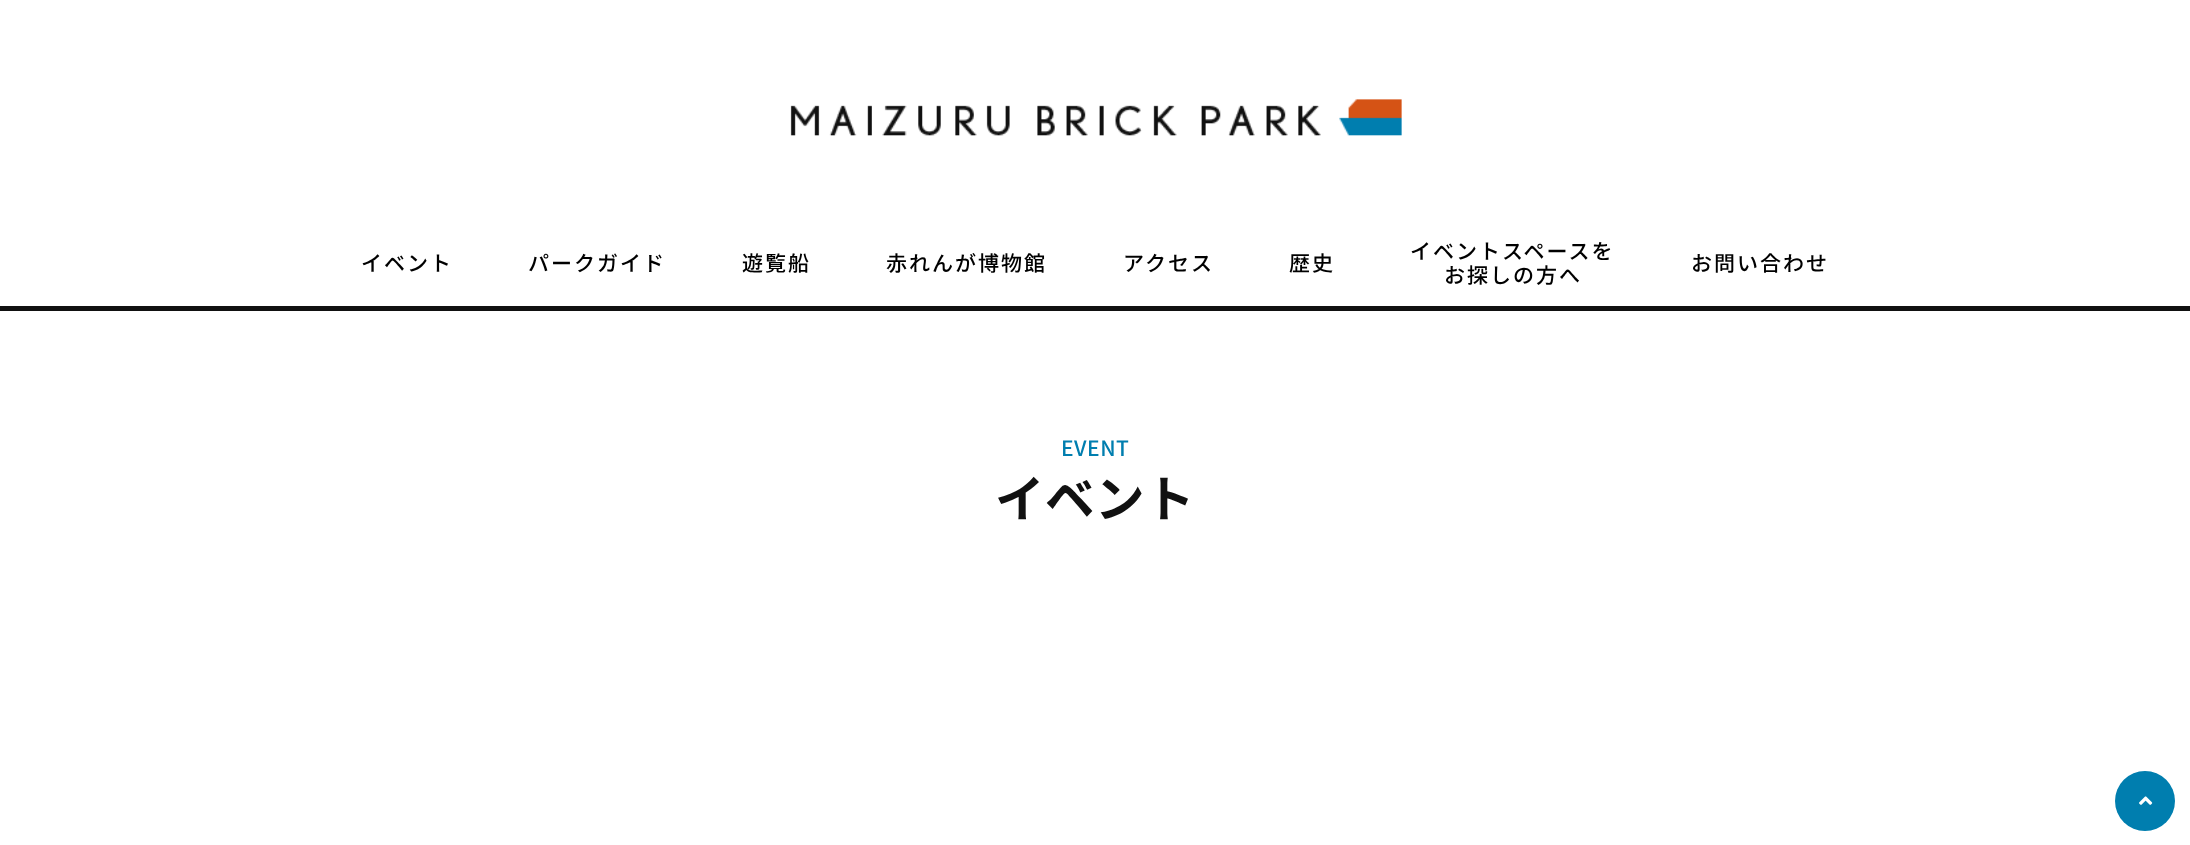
<svg xmlns="http://www.w3.org/2000/svg" xmlns:xlink="http://www.w3.org/1999/xlink" width="2190" height="845" viewBox="0 0 2190 845">
<style>
.cls-1{font:500 21px Noto Sans JP;letter-spacing:2px;fill:#000000}
.cls-2{font:500 21px Noto Sans JP;letter-spacing:0.5px;fill:#007eaf}
.cls-3{font:bold 49.5px Noto Sans JP;letter-spacing:0.5px;fill:#111111}
</style>
<rect width="100%" height="100%" fill="#ffffff"/>
<image xlink:href="image0.png" x="790" y="99" width="612" height="37"/>
<rect fill="#111111" x="0" y="306" width="2190" height="5"/>
<circle fill="#007eaf" cx="2145" cy="801" r="30"/>
<image xlink:href="image1.png" x="2139" y="796" width="14" height="9"/>
<text class="cls-1" x="361" y="271">イベント</text>
<text class="cls-1" x="528" y="271">パークガイド</text>
<text class="cls-1" x="742" y="271">遊覧船</text>
<text class="cls-1" x="886" y="271">赤れんが博物館</text>
<text class="cls-1" x="1123" y="271">アクセス</text>
<text class="cls-1" x="1289" y="271">歴史</text>
<text class="cls-1" x="1410" y="259">イベントスペースを</text>
<text class="cls-1" x="1444" y="283">お探しの方へ</text>
<text class="cls-1" x="1691" y="271">お問い合わせ</text>
<text class="cls-2" x="1061" y="456">EVENT</text>
<text class="cls-3" x="995" y="517">イベント</text>
</svg>
